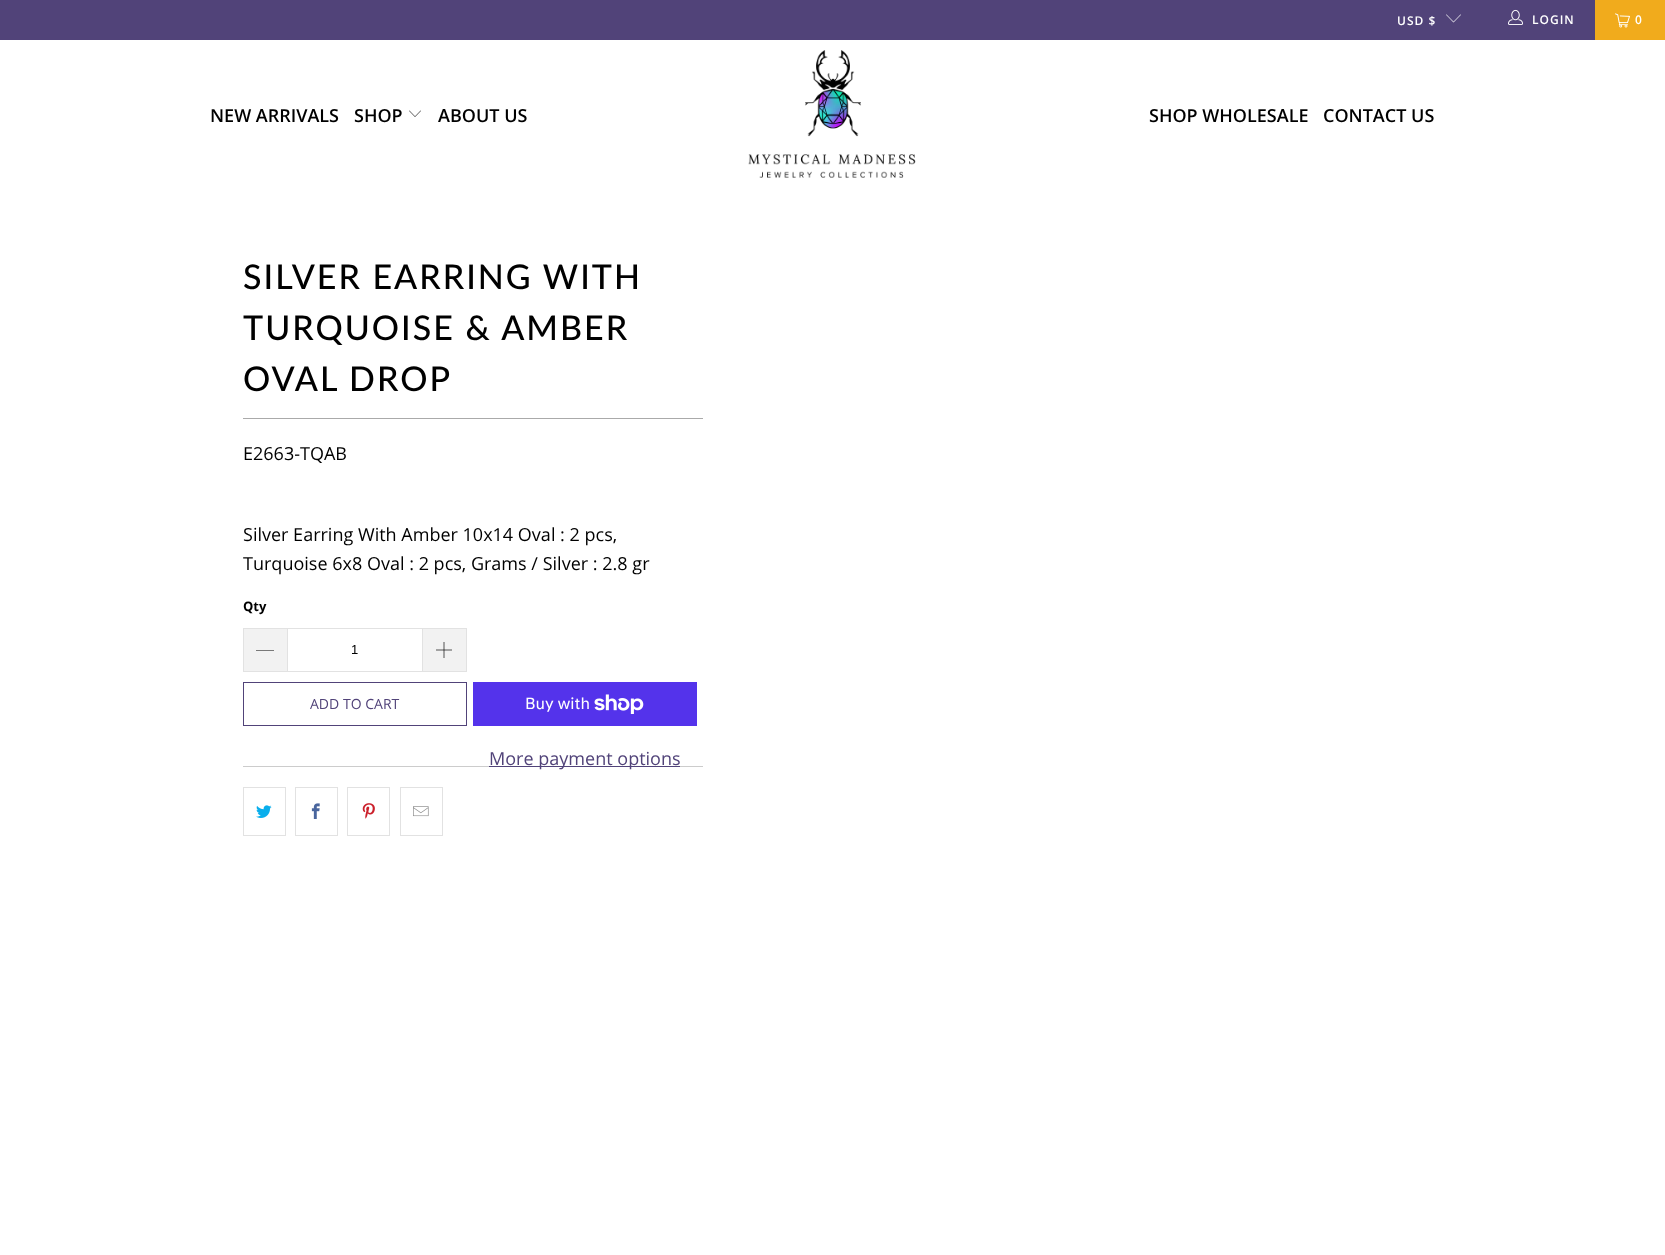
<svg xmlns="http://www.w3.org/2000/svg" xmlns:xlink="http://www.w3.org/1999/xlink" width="1665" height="1255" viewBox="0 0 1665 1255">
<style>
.cls-1{font:600 12px Open Sans;letter-spacing:1px;fill:#ffffff}
.cls-2{font:600 18px Open Sans;fill:#000000}
.cls-3{font:500 34px Lato;letter-spacing:2px;fill:#000000}
.cls-4{font:18px Open Sans;fill:#000000}
.cls-5{font:bold 13px Open Sans;fill:#000000}
.cls-6{font:13px Liberation Sans;fill:#000000}
.cls-7{font:14px Open Sans;fill:#514379}
.cls-8{font:16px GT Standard;fill:#ffffff}
.cls-9{font:18px Open Sans;fill:#514379}
</style>
<rect width="100%" height="100%" fill="#ffffff"/>
<rect fill="#514379" x="0" y="0" width="1595" height="40"/>
<image xlink:href="image0.png" x="1446" y="14" width="15" height="9"/>
<image xlink:href="image1.png" x="1508" y="9" width="15" height="16"/>
<rect fill="#f1ab1c" x="1595" y="0" width="70" height="40"/>
<image xlink:href="image2.png" x="1615" y="13" width="15" height="15"/>
<image xlink:href="image3.png" x="409" y="110" width="12" height="7"/>
<image xlink:href="image4.png" x="748" y="50" width="168" height="128"/>
<rect fill="#aaaaaa" x="243" y="418" width="460" height="1"/>
<rect fill="#f2f2f2" x="244" y="629" width="43" height="42"/>
<rect fill="#e2e2e2" x="243" y="628" width="44" height="1"/>
<rect fill="#e2e2e2" x="243" y="671" width="44" height="1"/>
<rect fill="#e2e2e2" x="243" y="628" width="1" height="44"/>
<path fill="#000000" d="M256 650H274V650.5H256Z"/>
<rect fill="none" stroke="#e2e2e2" x="287.5" y="628.5" width="135" height="43"/>
<rect fill="#f2f2f2" x="423" y="629" width="43" height="42"/>
<rect fill="#e2e2e2" x="423" y="628" width="44" height="1"/>
<rect fill="#e2e2e2" x="466" y="628" width="1" height="44"/>
<rect fill="#e2e2e2" x="423" y="671" width="44" height="1"/>
<image xlink:href="image5.png" x="436" y="642" width="16" height="16"/>
<rect fill="none" stroke="#514379" x="243.5" y="682.5" width="223" height="43"/>
<rect fill="#5433eb" x="473" y="682" width="224" height="44"/>
<image xlink:href="image6.png" x="594" y="694" width="50" height="20"/>
<rect fill="#cccccc" x="243" y="766" width="460" height="1"/>
<rect fill="#514379" x="489" y="766" width="191" height="1"/>
<rect fill="none" stroke="#e2e2e2" x="243.5" y="787.5" width="42" height="48"/>
<image xlink:href="image7.png" x="256" y="805" width="16" height="13"/>
<rect fill="none" stroke="#e2e2e2" x="295.5" y="787.5" width="42" height="48"/>
<image xlink:href="image8.png" x="311" y="803" width="9" height="16"/>
<rect fill="none" stroke="#e2e2e2" x="347.5" y="787.5" width="42" height="48"/>
<image xlink:href="image9.png" x="362" y="803" width="13" height="16"/>
<rect fill="none" stroke="#e2e2e2" x="400.5" y="787.5" width="42" height="48"/>
<image xlink:href="image10.png" x="413" y="806" width="16" height="11"/>
<text class="cls-1" x="1397" y="25">USD $</text>
<text class="cls-1" x="1532" y="24">LOGIN</text>
<text class="cls-1" x="1635" y="24">0</text>
<text class="cls-2" x="210" y="122">NEW ARRIVALS</text>
<text class="cls-2" x="354" y="122">SHOP</text>
<text class="cls-2" x="438" y="122">ABOUT US</text>
<text class="cls-2" x="1149" y="122">SHOP WHOLESALE</text>
<text class="cls-2" x="1323" y="122">CONTACT US</text>
<text class="cls-3"><tspan x="243" y="289">SILVER EARRING WITH</tspan><tspan x="243" y="340">TURQUOISE &amp; AMBER</tspan><tspan x="243" y="391">OVAL DROP</tspan></text>
<text class="cls-4" x="243" y="460">E2663-TQAB</text>
<text class="cls-4"><tspan x="243" y="541">Silver Earring With Amber 10x14 Oval : 2 pcs,</tspan><tspan x="243" y="570">Turquoise 6x8 Oval : 2 pcs, Grams / Silver : 2.8 gr</tspan></text>
<text class="cls-5" x="243" y="611">Qty</text>
<text class="cls-6" x="351" y="654">1</text>
<text class="cls-7" x="310" y="709">ADD TO CART</text>
<text class="cls-8" x="525" y="709">Buy with</text>
<text class="cls-9" x="489" y="765">More payment options</text>
</svg>
